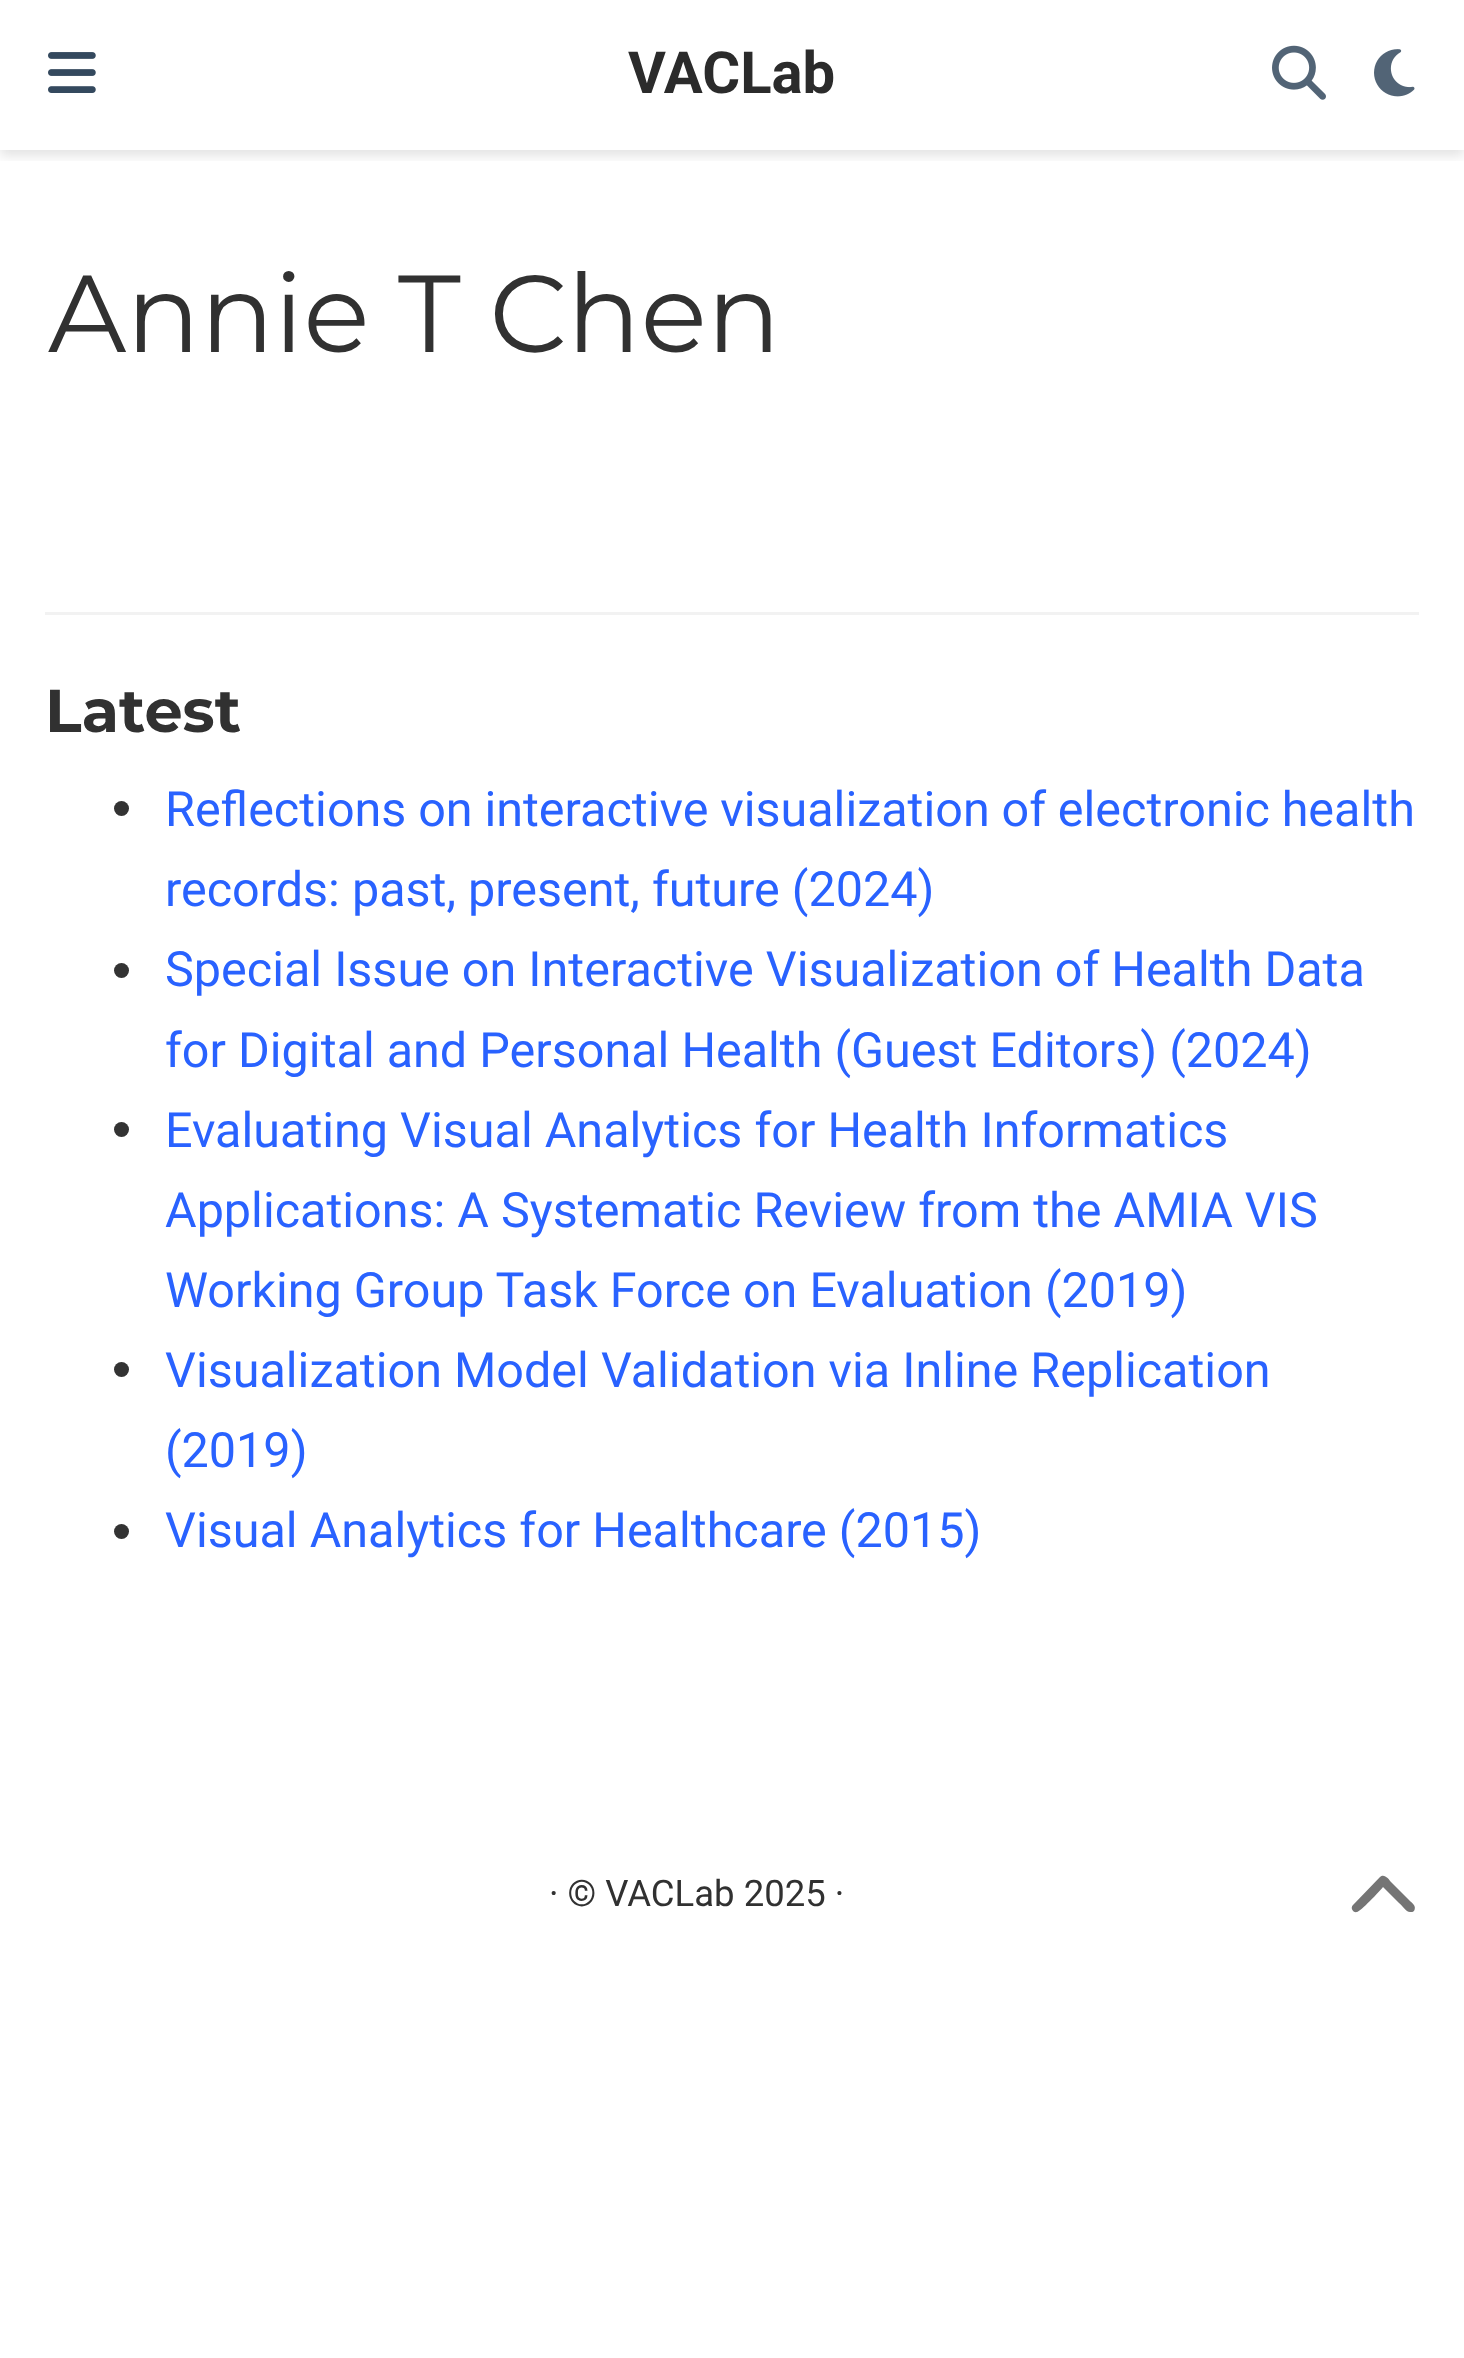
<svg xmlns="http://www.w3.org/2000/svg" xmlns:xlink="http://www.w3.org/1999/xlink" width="1464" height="2358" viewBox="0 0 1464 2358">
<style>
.cls-1{font:bold 58px Roboto;fill:#2b2b2b}
.cls-2{font:109.25px Montserrat;fill:#313131}
.cls-3{font:bold 60.5px Montserrat;fill:#313131}
.cls-4{font:48.5px Roboto;fill:#2962ff}
.cls-5{font:36.5px Roboto;fill:#313131}
</style>
<defs>
<clipPath id="clip1"><rect x="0" y="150" width="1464" height="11"/></clipPath>
</defs>
<rect width="100%" height="100%" fill="#ffffff"/>
<g clip-path="url(#clip1)">
<rect fill="#000000" fill-opacity="0.11" filter="blur(6px)" x="0" y="6" width="1464" height="150"/>
</g>
<image xlink:href="image0.png" x="48" y="52" width="48" height="41"/>
<image xlink:href="image1.png" x="1272" y="45" width="54" height="55"/>
<image xlink:href="image2.png" x="1374" y="49" width="41" height="48"/>
<rect fill="#f2f2f2" x="45" y="612" width="1374" height="3"/>
<circle fill="#333333" cx="121.5" cy="808.5" r="7.5"/>
<circle fill="#333333" cx="121.5" cy="970.5" r="7.5"/>
<circle fill="#333333" cx="121.5" cy="1129.5" r="7.5"/>
<circle fill="#333333" cx="121.5" cy="1369.5" r="7.5"/>
<circle fill="#333333" cx="121.5" cy="1531.5" r="7.5"/>
<path fill="#757575" d="M1380 1877C1384 1873 1389 1879 1391 1882L1409 1900C1412 1903 1417 1906 1414 1911C1413 1912 1412 1912 1410 1912C1406 1912 1402 1905 1399 1903L1383 1887C1380 1891 1360 1912 1357 1912C1353 1913 1350 1908 1353 1905Z"/>
<text class="cls-1" x="628" y="93">VACLab</text>
<text class="cls-2" x="48" y="352">Annie T Chen</text>
<text class="cls-3" x="45" y="732">Latest</text>
<text class="cls-4"><tspan x="165" y="826" word-spacing="-0.25">Reflections on interactive visualization of electronic health</tspan><tspan x="165" y="906">records: past, present, future (2024)</tspan><tspan x="165" y="986">Special Issue on Interactive Visualization of Health Data</tspan><tspan x="165" y="1067">for Digital and Personal Health (Guest Editors) (2024)</tspan><tspan x="165" y="1147">Evaluating Visual Analytics for Health Informatics</tspan><tspan x="165" y="1227">Applications: A Systematic Review from the AMIA VIS</tspan><tspan x="165" y="1307">Working Group Task Force on Evaluation (2019)</tspan><tspan x="165" y="1387">Visualization Model Validation via Inline Replication</tspan><tspan x="165" y="1467">(2019)</tspan><tspan x="165" y="1547">Visual Analytics for Healthcare (2015)</tspan></text>
<text class="cls-5" x="549" y="1906">· © VACLab 2025 ·</text>
</svg>
